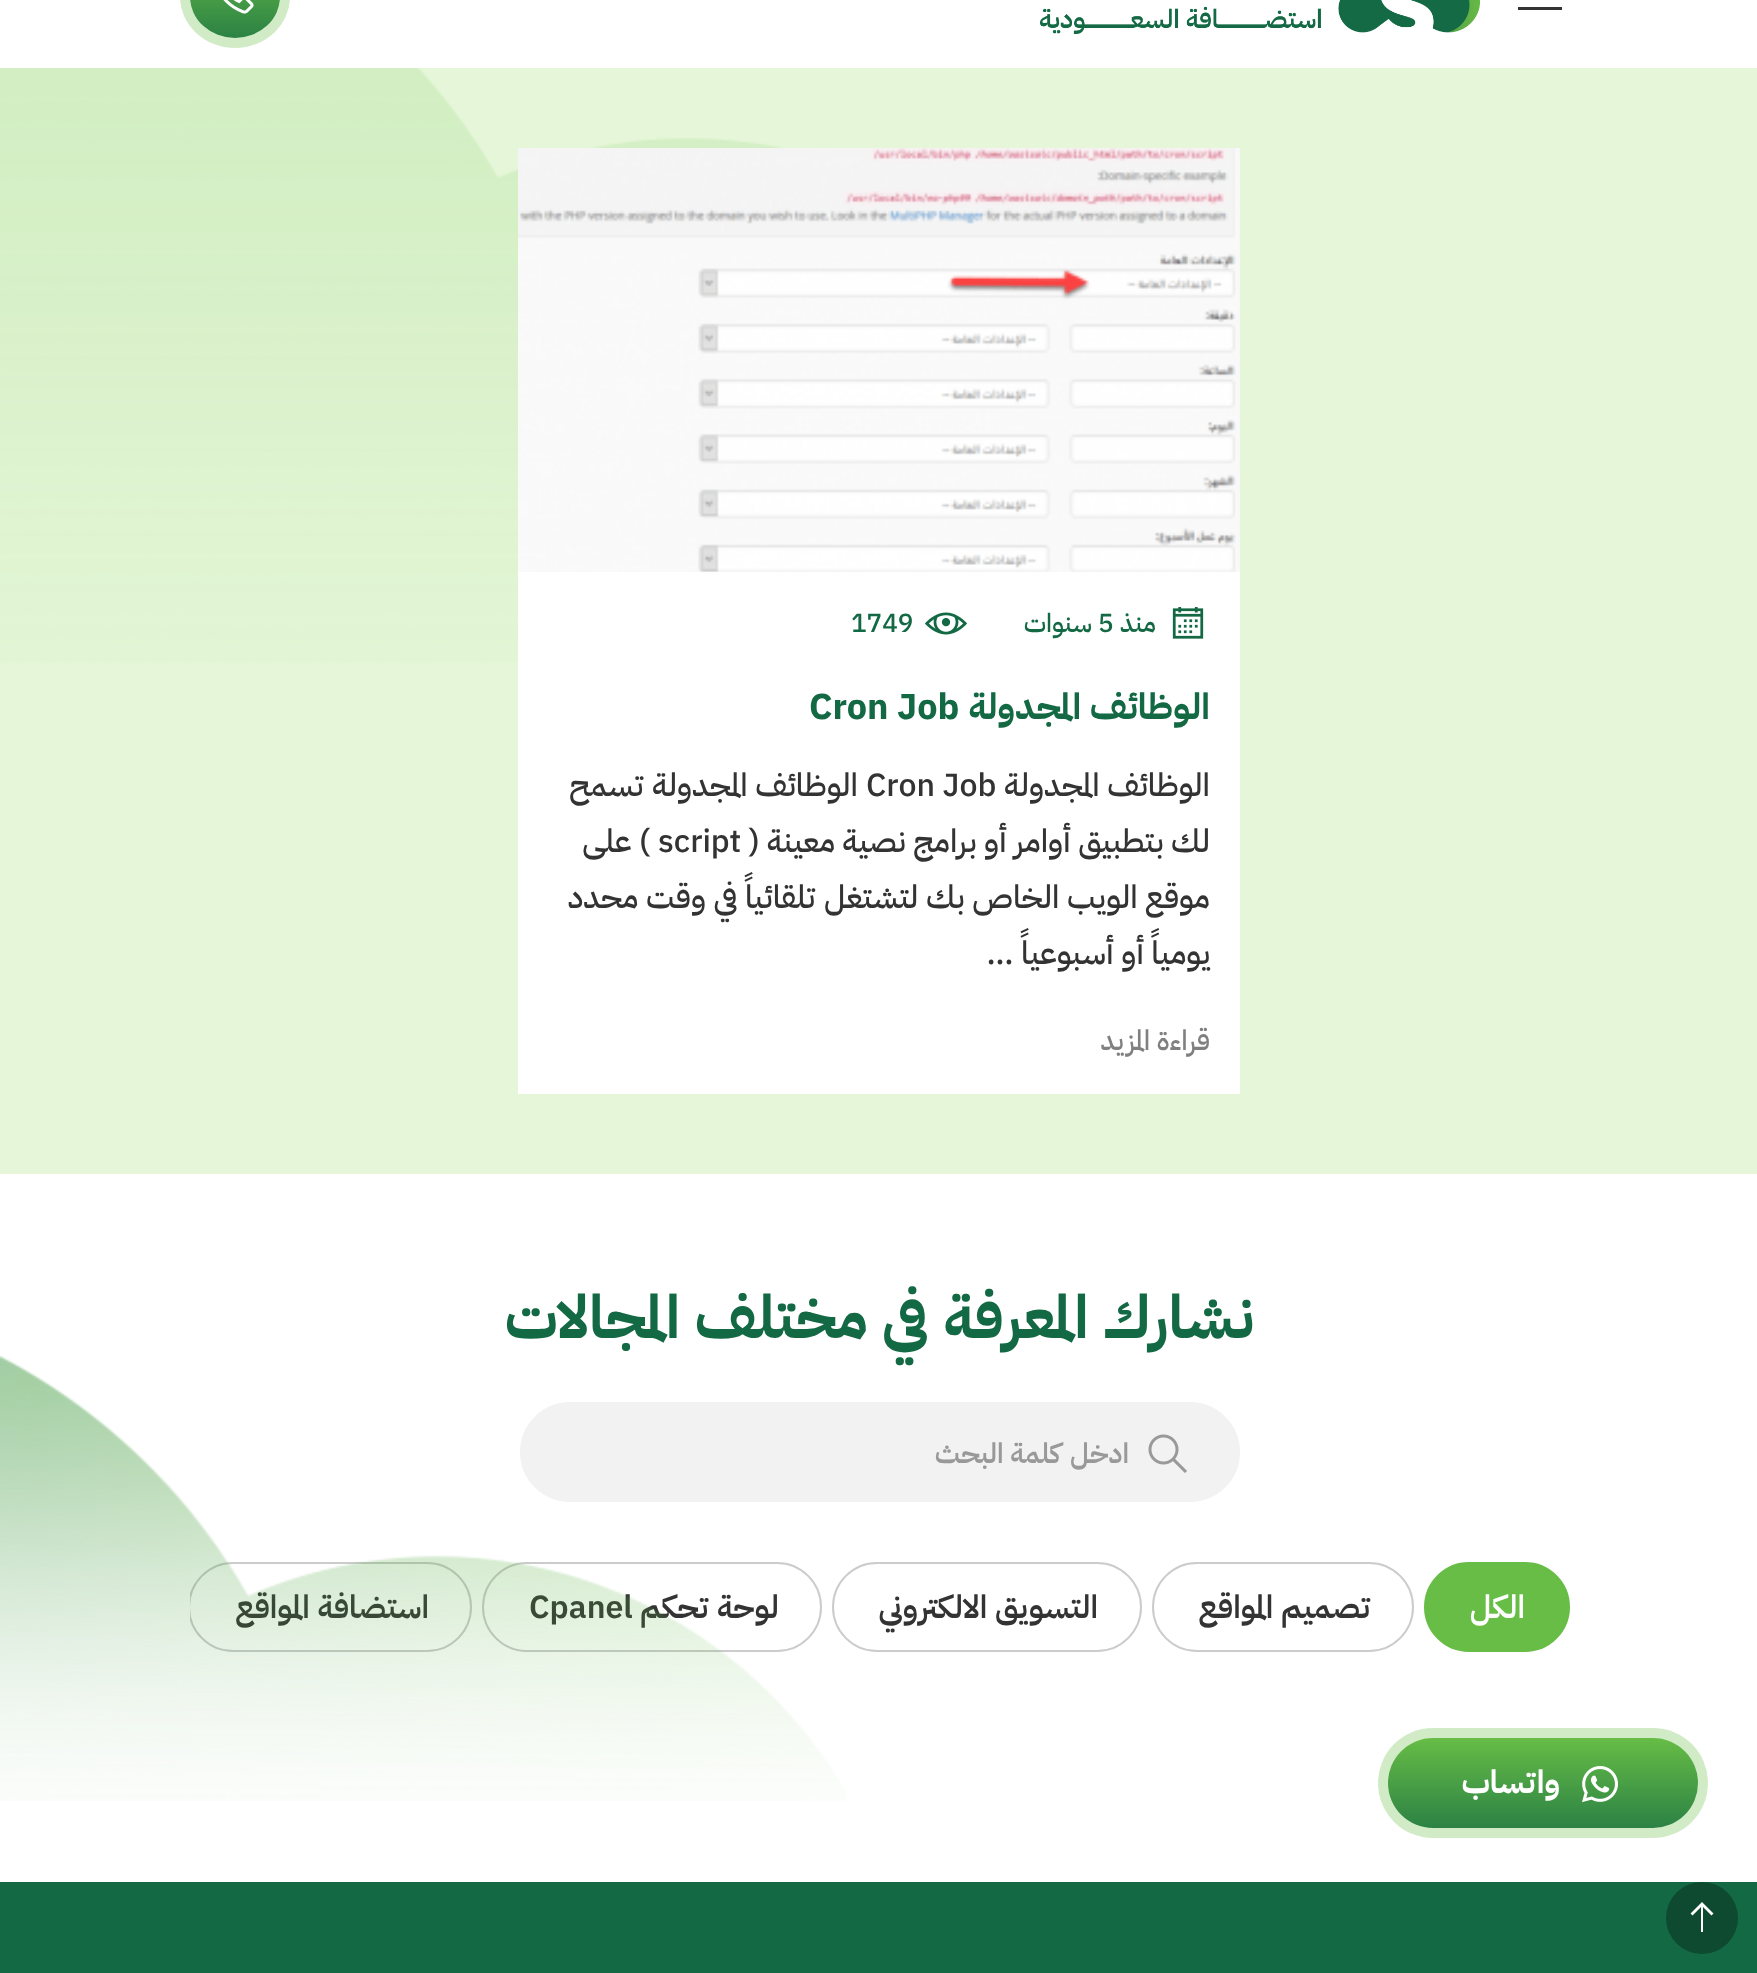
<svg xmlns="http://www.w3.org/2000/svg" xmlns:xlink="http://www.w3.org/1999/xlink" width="1757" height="1973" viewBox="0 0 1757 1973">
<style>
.cls-1{font:500 26px IBM Plex Sans Arabic;direction:rtl;fill:#136944}
.cls-2{font:500 26px IBM Plex Sans Arabic;fill:#136944}
.cls-3{font:bold 36px IBM Plex Sans Arabic;direction:rtl;fill:#136944}
.cls-4{font:bold 36px IBM Plex Sans Arabic;fill:#136944}
.cls-5{font:500 32px IBM Plex Sans Arabic;direction:rtl;fill:#333333}
.cls-6{font:500 32px IBM Plex Sans Arabic;fill:#333333}
.cls-7{font:500 28px IBM Plex Sans Arabic;direction:rtl;fill:#808080}
.cls-8{font:bold 60px IBM Plex Sans Arabic;direction:rtl;fill:#136944}
.cls-9{font:600 28px IBM Plex Sans Arabic;direction:rtl;fill:#999999}
.cls-10{font:600 32px IBM Plex Sans Arabic;direction:rtl;fill:#ffffff}
.cls-11{font:600 32px IBM Plex Sans Arabic;direction:rtl;fill:#333333}
.cls-12{font:600 32px IBM Plex Sans Arabic;fill:#333333}
.cls-13{font:bold 32px IBM Plex Sans Arabic;direction:rtl;fill:#ffffff}
</style>
<defs>
<linearGradient id="g1" gradientUnits="userSpaceOnUse" x1="235" y1="38" x2="235" y2="-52"><stop offset="0" stop-color="#136944"/><stop offset="1" stop-color="#67bd46"/></linearGradient>
<clipPath id="clip1"><rect x="190" y="1562" width="1380" height="100"/></clipPath>
<linearGradient id="g2" gradientUnits="userSpaceOnUse" x1="1543" y1="1828" x2="1543" y2="1738"><stop offset="0" stop-color="#136944"/><stop offset="1" stop-color="#67bd46"/></linearGradient>
</defs>
<rect width="100%" height="100%" fill="#ffffff"/>
<path fill="#333333" d="M1518-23V-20H1562V-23ZM1518-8V-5H1562V-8ZM1518 7V10H1562V7Z"/>
<image xlink:href="image0.png" x="1040" y="0" width="440" height="34"/>
<rect fill="url(#g1)" x="190" y="-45" width="90" height="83" rx="45"/>
<rect fill="#67bd46" fill-opacity="0.3" x="180" y="-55" width="110" height="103" rx="55"/>
<image xlink:href="image1.png" x="223" y="0" width="31" height="14"/>
<rect fill="#e6f7d9" x="0" y="68" width="1757" height="1106"/>
<image xlink:href="image2.png" x="0" y="68" width="785" height="595"/>
<rect fill="#ffffff" x="518" y="572" width="722" height="522"/>
<image xlink:href="image3.png" x="518" y="148" width="722" height="424"/>
<image xlink:href="image4.png" x="1172" y="607" width="32" height="32"/>
<image xlink:href="image5.png" x="925" y="612" width="42" height="23"/>
<rect fill="#f2f2f2" stroke="#f2f2f2" stroke-width="4" x="522" y="1404" width="716" height="96" rx="48"/>
<image xlink:href="image6.png" x="1148" y="1434" width="39" height="39"/>
<rect fill="#67bd46" stroke="#67bd46" stroke-width="2" x="1425" y="1563" width="144" height="88" rx="44"/>
<rect fill="none" stroke="#cccccc" stroke-width="2" x="1153" y="1563" width="260" height="88" rx="44"/>
<rect fill="none" stroke="#cccccc" stroke-width="2" x="833" y="1563" width="308" height="88" rx="44"/>
<rect fill="none" stroke="#cccccc" stroke-width="2" x="483" y="1563" width="338" height="88" rx="44"/>
<g clip-path="url(#clip1)">
<rect fill="none" stroke="#cccccc" stroke-width="2" x="189" y="1563" width="282" height="88" rx="44"/>
</g>
<rect fill="#136944" x="0" y="1882" width="1757" height="91"/>
<rect fill="url(#g2)" x="1388" y="1738" width="310" height="90" rx="45"/>
<rect fill="#67bd46" fill-opacity="0.3" x="1378" y="1728" width="330" height="110" rx="55"/>
<image xlink:href="image8.png" x="1582" y="1766" width="36" height="37"/>
<circle fill="#0d4a30" cx="1702" cy="1918" r="36"/>
<path fill="#ffffff" d="M1702 1902L1690.5 1913.5L1692.5 1915.5L1701 1907V1932H1703V1907L1711.5 1915.5L1713.5 1913.5Z"/>
<text class="cls-1" x="1156" y="632">منذ</text>
<text class="cls-2" x="1098" y="632">5</text>
<text class="cls-1" x="1092" y="632">سنوات</text>
<text class="cls-2" x="851" y="632">1749</text>
<text class="cls-3" x="1210" y="719">الوظائف المجدولة</text>
<text class="cls-4" x="809" y="719">Cron Job</text>
<text class="cls-5" x="1210" y="796">الوظائف المجدولة</text>
<text class="cls-6" x="866" y="796">Cron Job</text>
<text class="cls-5" x="858" y="796">الوظائف المجدولة تسمح</text>
<text class="cls-5" x="1210" y="852">لك بتطبيق أوامر أو برامج نصية معينة (</text>
<text class="cls-6" x="658" y="852">script</text>
<text class="cls-5" x="650" y="852">) على</text>
<text class="cls-5"><tspan x="1210" y="908">موقع الويب الخاص بك لتشتغل تلقائياً في وقت محدد</tspan><tspan x="1210" y="964">يومياً أو أسبوعياً …</tspan></text>
<text class="cls-7" x="1210" y="1050">قراءة المزيد</text>
<text class="cls-8" x="1254" y="1338">نشارك المعرفة في مختلف المجالات</text>
<text class="cls-9" x="1129" y="1463">ادخل كلمة البحث</text>
<text class="cls-10" x="1525" y="1618">الكل</text>
<text class="cls-11" x="1370" y="1618">تصميم المواقع</text>
<text class="cls-11" x="1098" y="1618">التسويق الالكتروني</text>
<text class="cls-11" x="779" y="1618">لوحة تحكم</text>
<text class="cls-12" x="529" y="1618">Cpanel</text>
<text class="cls-11" x="429" y="1618">استضافة المواقع</text>
<image xlink:href="image7.png" x="0" y="1356" width="846" height="445"/>
<text class="cls-13" x="1560" y="1793">واتساب</text>
</svg>
